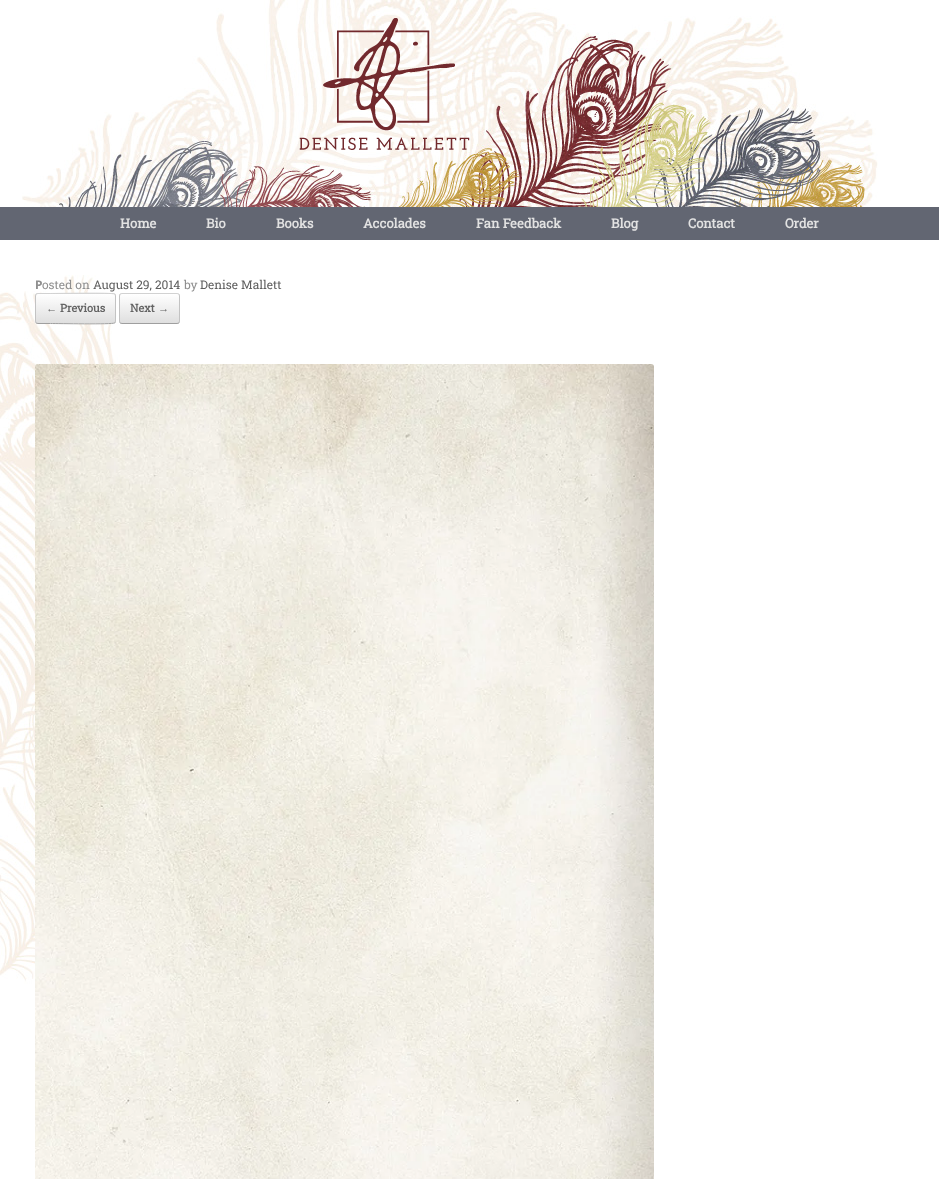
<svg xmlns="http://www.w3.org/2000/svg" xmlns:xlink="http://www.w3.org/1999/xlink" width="939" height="1179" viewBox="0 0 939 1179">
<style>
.cls-1{font:bold 13px Roboto Slab;fill:#e2e2e2}
.cls-2{font:bold 12px Noto Sans;fill:#8f8f8f}
.cls-3{font:12px Roboto Slab;fill:#8f8f8f}
.cls-4{font:12px Roboto Slab;fill:#5e5e5e}
.cls-5{font:bold 11px Liberation Serif;fill:#646464}
.cls-6{font:bold 11px Roboto Slab;fill:#646464}
</style>
<defs>
<clipPath id="clip1"><rect x="35" y="293" width="81" height="31" rx="3"/></clipPath>
<linearGradient id="g1" gradientUnits="userSpaceOnUse" x1="36" y1="294" x2="36" y2="265"><stop offset="0" stop-color="#dfdfdf"/><stop offset="1" stop-color="#ffffff"/></linearGradient>
<linearGradient id="g2" gradientUnits="userSpaceOnUse" x1="36" y1="323" x2="36" y2="294"><stop offset="0" stop-color="#dfdfdf"/><stop offset="1" stop-color="#ffffff"/></linearGradient>
<linearGradient id="g3" gradientUnits="userSpaceOnUse" x1="36" y1="352" x2="36" y2="323"><stop offset="0" stop-color="#dfdfdf"/><stop offset="1" stop-color="#ffffff"/></linearGradient>
<clipPath id="clip2"><rect x="119" y="293" width="61" height="31" rx="3"/></clipPath>
<linearGradient id="g4" gradientUnits="userSpaceOnUse" x1="120" y1="323" x2="120" y2="294"><stop offset="0" stop-color="#dfdfdf"/><stop offset="1" stop-color="#ffffff"/></linearGradient>
</defs>
<rect width="100%" height="100%" fill="#ffffff"/>
<image xlink:href="image0.png" x="22" y="0" width="856" height="207"/>
<image xlink:href="image1.png" x="299" y="18" width="171" height="133"/>
<rect fill="#626672" x="0" y="207" width="939" height="33"/>
<image xlink:href="image2.png" x="0" y="275" width="175" height="709"/>
<g clip-path="url(#clip1)">
<rect fill="url(#g1)" x="35" y="293" width="81" height="1"/>
<rect fill="url(#g2)" x="35" y="294" width="81" height="29"/>
<rect fill="url(#g3)" x="35" y="323" width="81" height="1"/>
</g>
<path fill="none" stroke="#d2d2d2" d="M36 294L38 293.5H50.5C57.5 293.5 112.5 292.5 114.5 294H115"/>
<path fill="none" stroke="#c3c3c3" d="M115 294C115 294.5 115.5 295.5 115.5 296V321C115.5 321.5 115 322.5 115 323"/>
<path fill="none" stroke="#9f9f9f" d="M115 323H114.5C112.5 324.5 57.5 323.5 50.5 323.5H38L36 323"/>
<path fill="none" stroke="#c3c3c3" d="M36 323C36 322.5 35.5 321.5 35.5 321V296C35.5 295.5 36 294.5 36 294"/>
<g clip-path="url(#clip2)">
<rect fill="url(#g4)" x="119" y="294" width="61" height="29"/>
</g>
<path fill="none" stroke="#d2d2d2" d="M120 294L122 293.5H177L179 294"/>
<path fill="none" stroke="#c3c3c3" d="M179 294C179 294.5 179.5 295.5 179.5 296V321C179.5 321.5 179 322.5 179 323"/>
<path fill="none" stroke="#9f9f9f" d="M179 323L177 323.5H122L120 323"/>
<path fill="none" stroke="#c3c3c3" d="M120 323C120 322.5 119.5 321.5 119.5 321V296C119.5 295.5 120 294.5 120 294"/>
<image xlink:href="image3.png" x="35" y="364" width="619" height="815"/>
<text class="cls-1" x="120" y="228">Home</text>
<text class="cls-1" x="206" y="228">Bio</text>
<text class="cls-1" x="276" y="228">Books</text>
<text class="cls-1" x="363" y="228">Accolades</text>
<text class="cls-1" x="476" y="228">Fan Feedback</text>
<text class="cls-1" x="611" y="228">Blog</text>
<text class="cls-1" x="688" y="228">Contact</text>
<text class="cls-1" x="785" y="228">Order</text>
<text class="cls-2" x="35" y="289">P</text>
<text class="cls-3" x="42" y="289">osted on</text>
<text class="cls-4" x="93" y="289">August 29, 2014</text>
<text class="cls-3" x="184" y="289">by</text>
<text class="cls-4" x="200" y="289">Denise Mallett</text>
<text class="cls-5" x="46" y="312">←</text>
<text class="cls-6" x="60" y="312">Previous</text>
<text class="cls-6" x="130" y="312">Next</text>
<text class="cls-5" x="158" y="312">→</text>
</svg>
